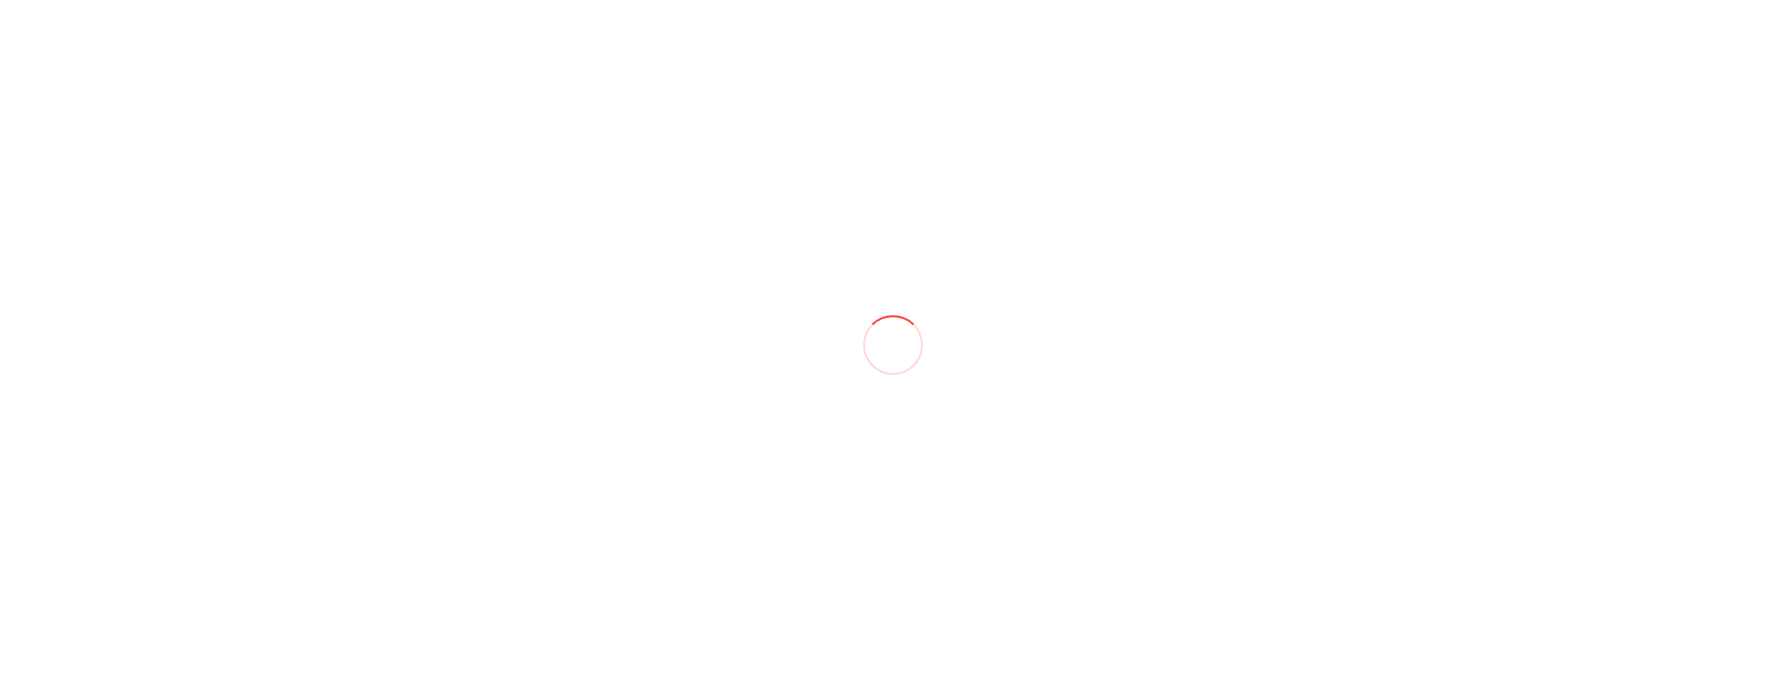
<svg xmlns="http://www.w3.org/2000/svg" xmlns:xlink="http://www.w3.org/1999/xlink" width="1786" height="689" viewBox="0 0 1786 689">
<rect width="100%" height="100%" fill="#ffffff"/>
<circle fill="none" stroke="#ffdad9" stroke-width="2" cx="893" cy="345" r="29"/>
<path fill="none" stroke="#fe4641" stroke-width="2" d="M872.5 324.5C883.5 313.5 902.5 313.5 913.5 324.5"/>
</svg>
